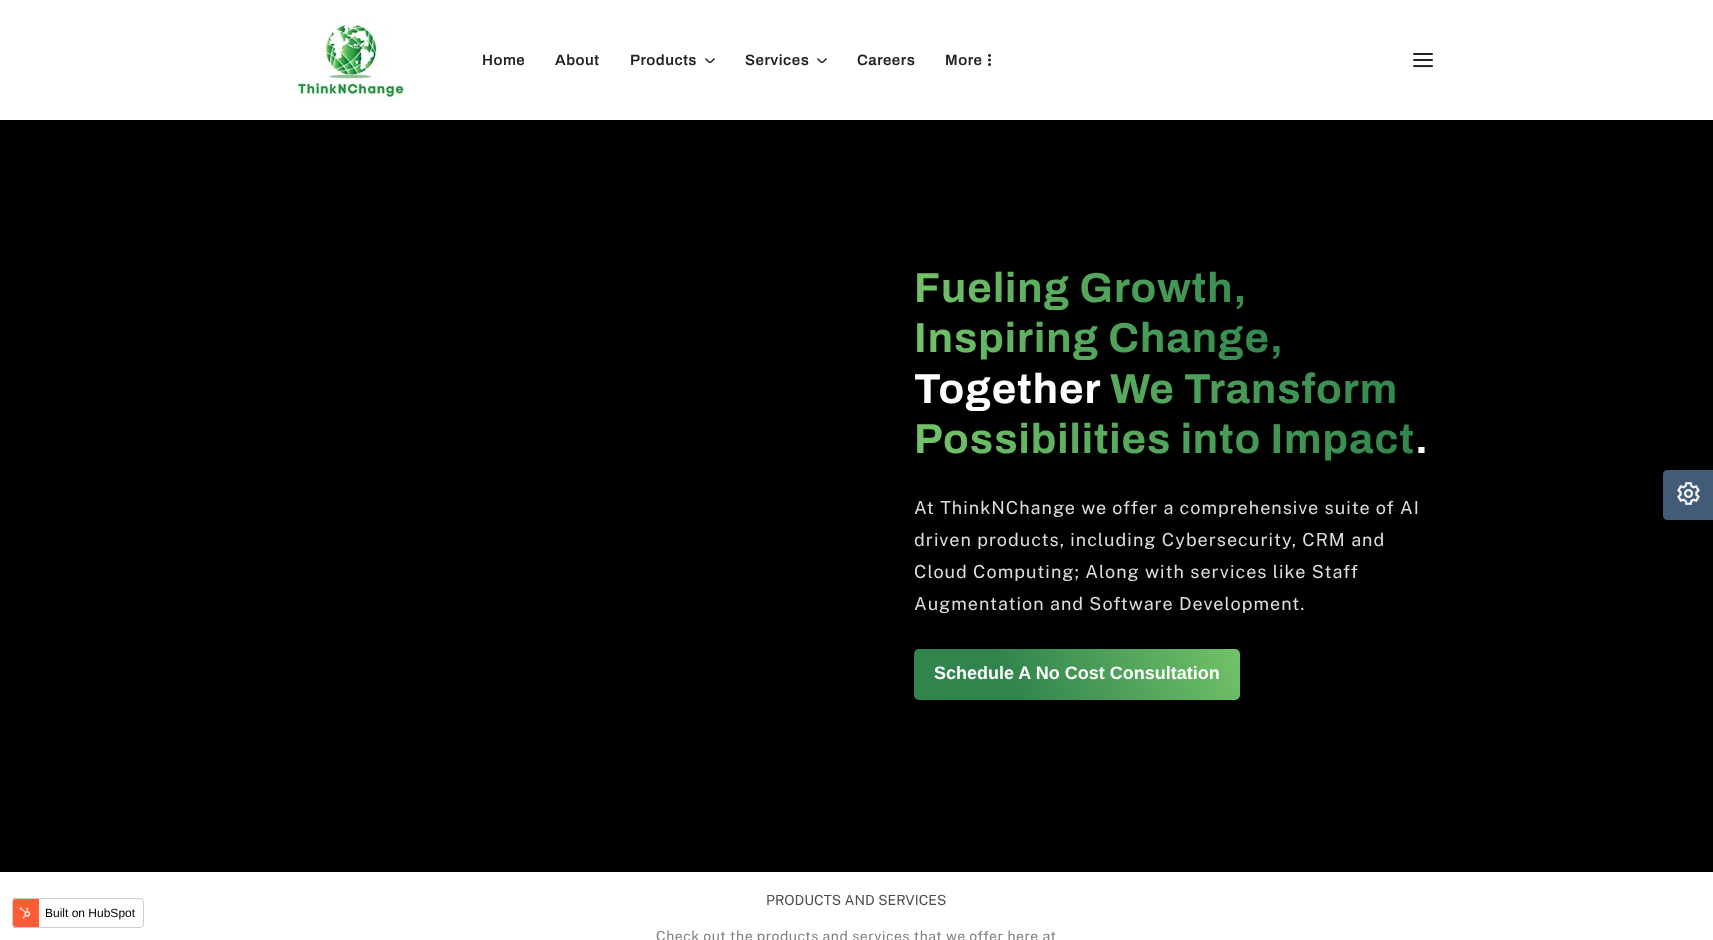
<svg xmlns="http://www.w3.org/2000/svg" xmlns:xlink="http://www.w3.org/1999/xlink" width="1713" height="940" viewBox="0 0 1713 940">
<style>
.cls-1{font:12px Liberation Sans;fill:#000000}
.cls-2{font:600 15px Archivo;letter-spacing:0.5px;fill:#222222}
.cls-3{font:bold 42px Archivo;letter-spacing:1px;fill:url(#g1)}
.cls-4{font:bold 42px Archivo;letter-spacing:1px;fill:#ffffff}
.cls-5{font:bold 42px Archivo;letter-spacing:1px;fill:url(#g2)}
.cls-6{font:18px Public Sans;letter-spacing:1px;fill:#dddddd}
.cls-7{font:bold 18px Liberation Sans;fill:#ffffff}
.cls-8{font:14px Public Sans;fill:#4e4e4e}
.cls-9{font:14px Public Sans;letter-spacing:0.5px;fill:#808080}
</style>
<defs>
<clipPath id="clip1"><rect x="12" y="898" width="132" height="30" rx="4"/></clipPath>
<linearGradient id="g1" gradientUnits="userSpaceOnUse" x1="1284" y1="313" x2="914" y2="313"><stop offset="0" stop-color="#30854d"/><stop offset="1" stop-color="#73c368"/></linearGradient>
<linearGradient id="g2" gradientUnits="userSpaceOnUse" x1="1415" y1="414" x2="914" y2="414"><stop offset="0" stop-color="#30854d"/><stop offset="1" stop-color="#73c368"/></linearGradient>
<linearGradient id="g3" gradientUnits="userSpaceOnUse" x1="935" y1="743" x2="1219" y2="605"><stop offset="0.3" stop-color="#30854d"/><stop offset="1" stop-color="#73c368"/></linearGradient>
</defs>
<rect width="100%" height="100%" fill="#ffffff"/>
<g clip-path="url(#clip1)">
<rect fill="#ff5c35" x="13" y="898" width="26" height="30"/>
</g>
<rect fill="none" stroke="#cccccc" x="12.5" y="898.5" width="131" height="29" rx="3.5"/>
<image xlink:href="image0.png" x="19" y="907" width="12" height="12"/>
<image xlink:href="image1.png" x="297" y="19" width="108" height="80"/>
<image xlink:href="image2.png" x="705" y="58" width="10" height="5"/>
<image xlink:href="image2.png" x="817" y="58" width="10" height="5"/>
<image xlink:href="image3.png" x="988" y="54" width="3" height="12"/>
<image xlink:href="image4.png" x="1413" y="53" width="20" height="15"/>
<rect fill="#000000" x="0" y="120" width="1713" height="752"/>
<rect fill="url(#g3)" x="914" y="649" width="326" height="51" rx="5"/>
<path fill="#425b76" d="M1667 470H1713V520H1667C1665 520 1663 518 1663 516V474C1663 472 1665 470 1667 470Z"/>
<image xlink:href="image5.png" x="1677" y="482" width="23" height="23"/>
<text class="cls-1" x="45" y="917">Built on HubSpot</text>
<text class="cls-2" x="482" y="65">Home</text>
<text class="cls-2" x="555" y="65">About</text>
<text class="cls-2" x="630" y="65">Products</text>
<text class="cls-2" x="745" y="65">Services</text>
<text class="cls-2" x="857" y="65">Careers</text>
<text class="cls-2" x="945" y="65">More</text>
<text class="cls-3"><tspan x="914" y="302">Fueling Growth,</tspan><tspan x="914" y="352">Inspiring Change,</tspan></text>
<text class="cls-4" x="914" y="403">Together</text>
<text class="cls-5" x="1110" y="403">We Transform</text>
<text class="cls-5" x="914" y="453">Possibilities into Impact</text>
<text class="cls-4" x="1415" y="453">.</text>
<text class="cls-6"><tspan x="914" y="514">At ThinkNChange we offer a comprehensive suite of AI</tspan><tspan x="914" y="546">driven products, including Cybersecurity, CRM and</tspan><tspan x="914" y="578">Cloud Computing; Along with services like Staff</tspan><tspan x="914" y="610">Augmentation and Software Development.</tspan></text>
<text class="cls-7" x="934" y="679">Schedule A No Cost Consultation</text>
<text class="cls-8" x="766" y="905">PRODUCTS AND SERVICES</text>
<text class="cls-9" x="656" y="941">Check out the products and services that we offer here at</text>
</svg>
